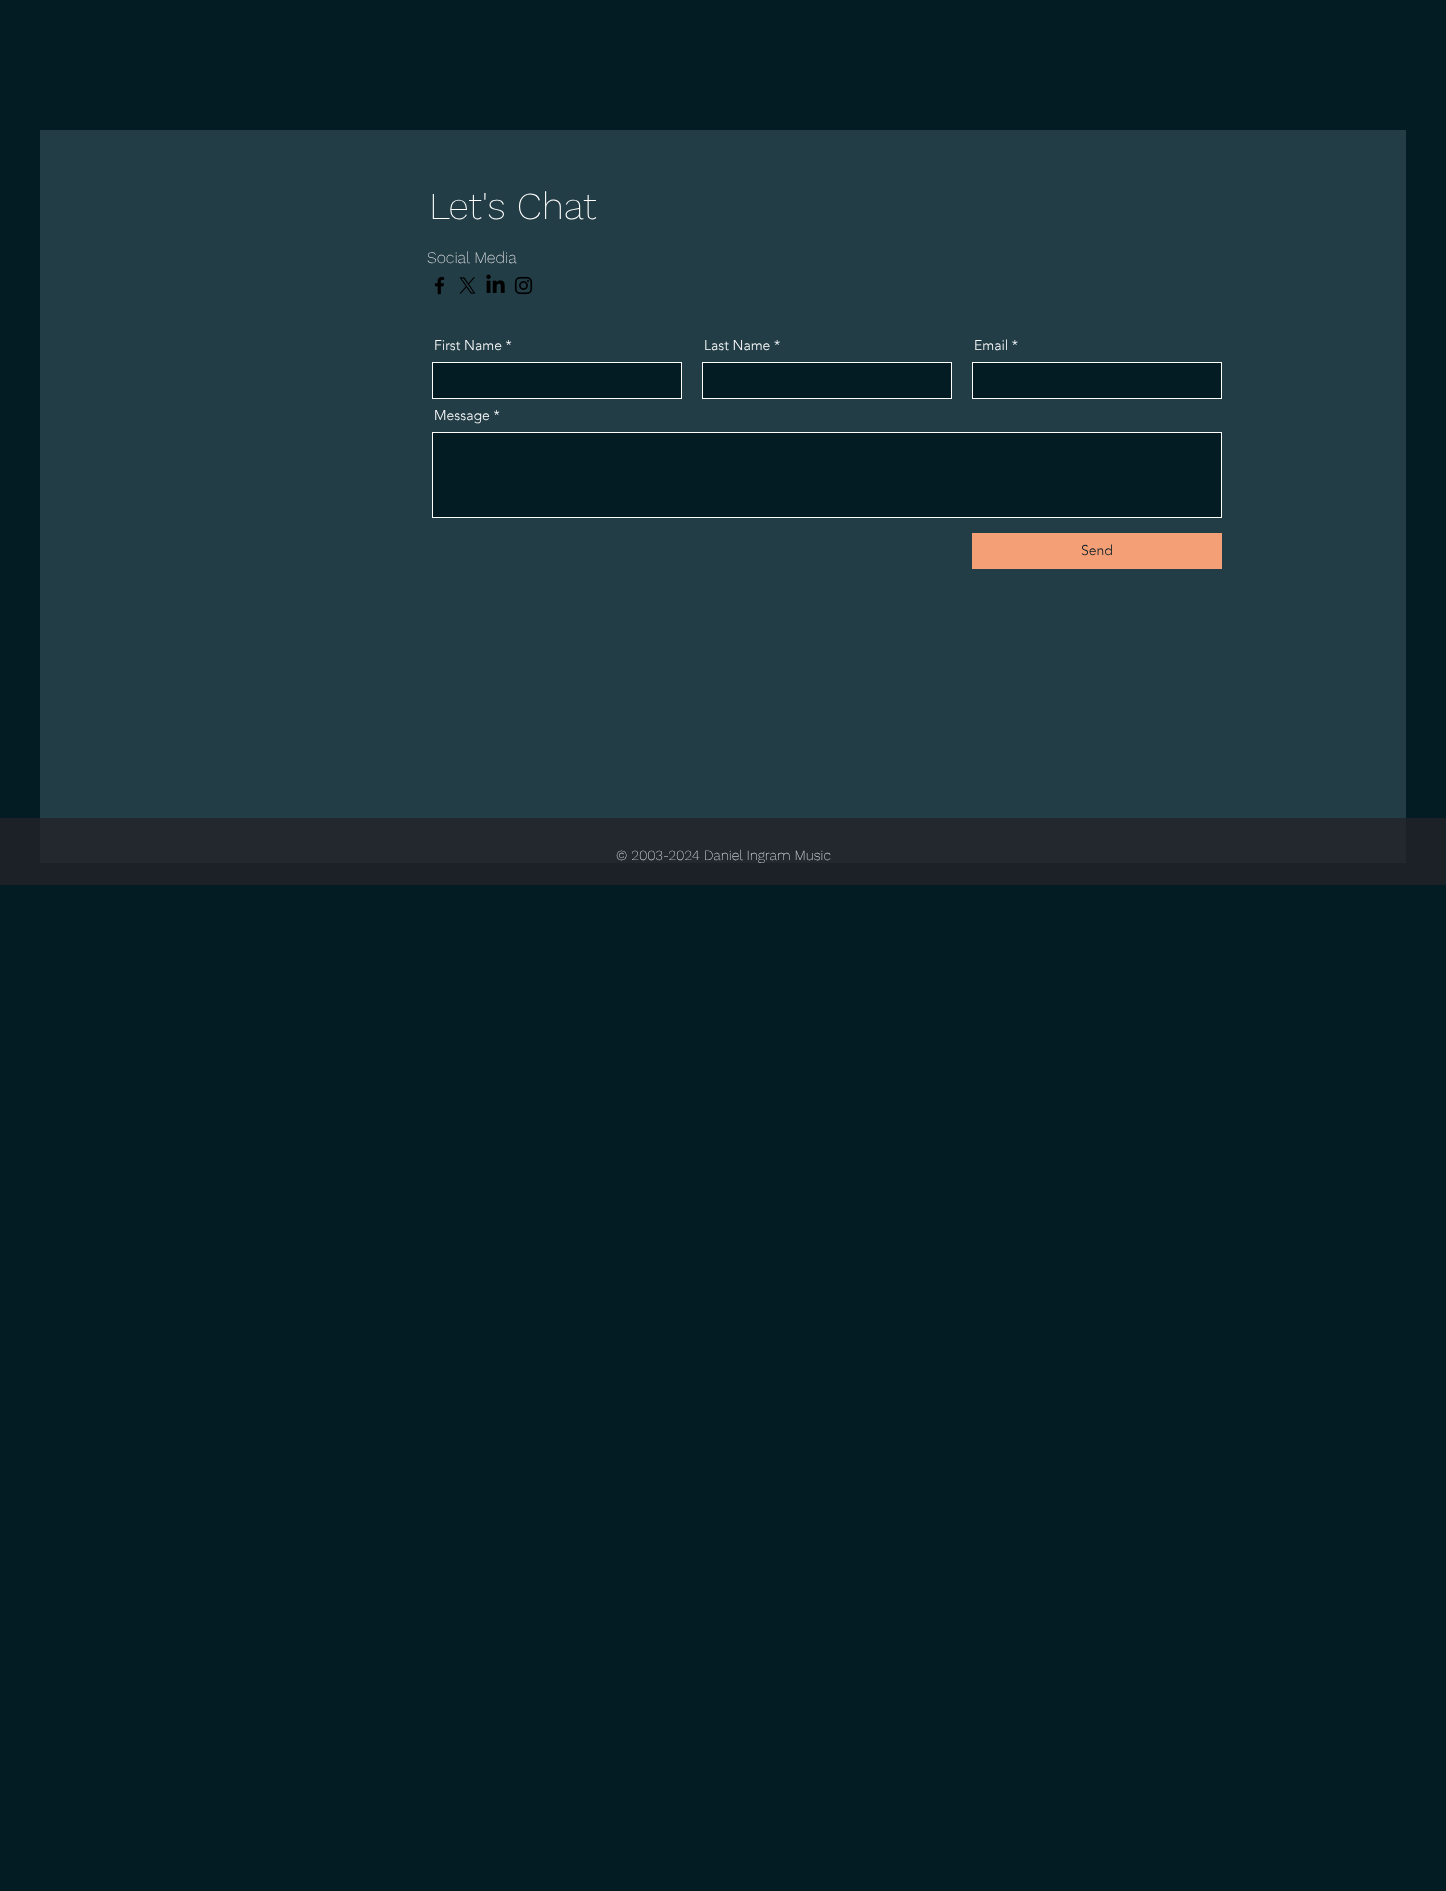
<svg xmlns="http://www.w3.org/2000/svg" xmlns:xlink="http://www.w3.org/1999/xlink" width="1446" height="1891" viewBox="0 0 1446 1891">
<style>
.cls-1{font:200 38px Work Sans;fill:#ffffff}
.cls-2{font:200 16px Work Sans;fill:#ffffff}
.cls-3{font:300 14px 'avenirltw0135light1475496';fill:#ffffff}
.cls-4{font:300 14px 'avenirltw0135light1475496';fill:#031b23}
.cls-5{font:200 14px Work Sans;fill:#ffffff}
</style>
<rect width="100%" height="100%" fill="#031b23"/>
<rect fill="#233d46" x="40" y="130" width="1366" height="688"/>
<rect fill="#1c2127" x="0" y="818" width="1446" height="67"/>
<rect fill="#22282e" x="40" y="818" width="1366" height="45"/>
<image xlink:href="image0.png" x="434" y="276" width="11" height="19"/>
<image xlink:href="image1.png" x="459" y="277" width="17" height="17"/>
<image xlink:href="image2.png" x="486" y="274" width="19" height="19"/>
<image xlink:href="image3.png" x="514" y="276" width="19" height="19"/>
<rect fill="#031b23" stroke="#ffffff" x="432.5" y="362.5" width="249" height="36"/>
<rect fill="#031b23" stroke="#ffffff" x="702.5" y="362.5" width="249" height="36"/>
<rect fill="#031b23" stroke="#ffffff" x="972.5" y="362.5" width="249" height="36"/>
<rect fill="#031b23" stroke="#ffffff" x="432.5" y="432.5" width="789" height="85"/>
<rect fill="#f59f76" x="972" y="533" width="250" height="36"/>
<text class="cls-1" x="429" y="219">Let's Chat</text>
<text class="cls-2" x="427" y="263">Social Media</text>
<text class="cls-3" x="434" y="350">First Name *</text>
<text class="cls-3" x="704" y="350">Last Name *</text>
<text class="cls-3" x="974" y="350">Email *</text>
<text class="cls-3" x="434" y="420">Message *</text>
<text class="cls-4" x="1081" y="555">Send</text>
<text class="cls-5" x="616" y="860">© 2003-2024 Daniel Ingram Music</text>
</svg>
